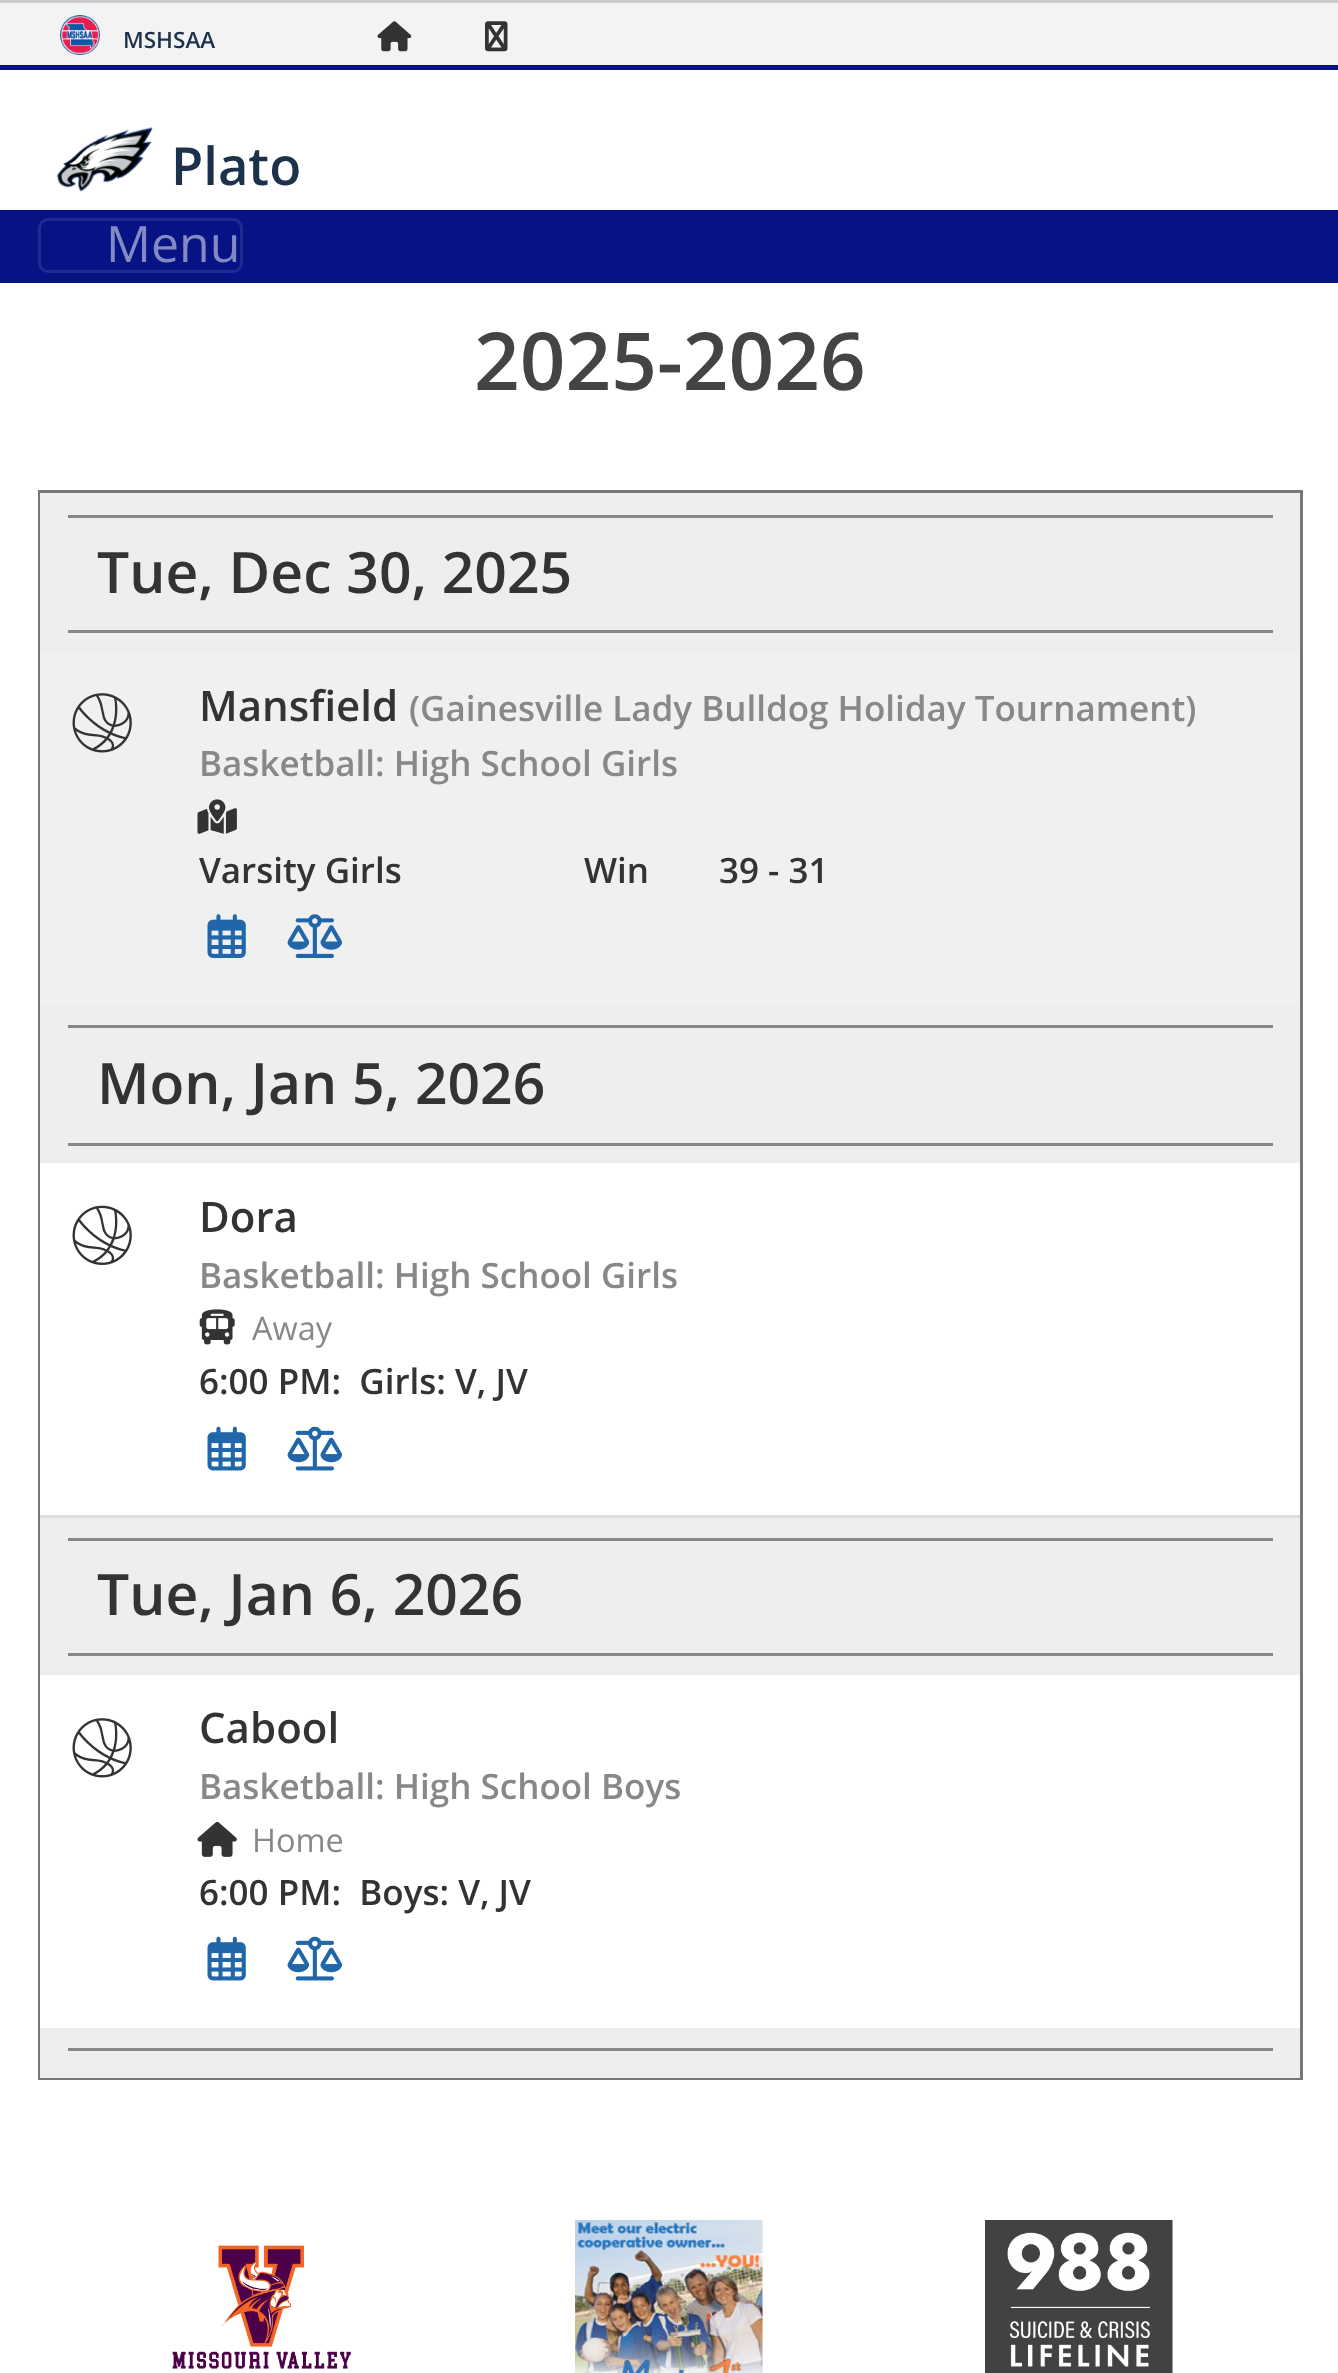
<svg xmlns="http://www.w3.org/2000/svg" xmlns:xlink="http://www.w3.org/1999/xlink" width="1338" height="2373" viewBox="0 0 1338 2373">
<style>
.cls-1{font:600 22.5px Open Sans;fill:#1c314c}
.cls-2{font:600 52.5px Open Sans;fill:#1c314c}
.cls-3{font:50px Open Sans;fill:#8389c2}
.cls-4{font:600 80px Open Sans;fill:#444444}
.cls-5{font:600 57px Open Sans;fill:#333333}
.cls-6{font:600 42px Open Sans;fill:#333333}
.cls-7{font:600 35px Open Sans;fill:#888888}
.cls-8{font:600 35px Open Sans;fill:#333333}
.cls-9{font:32.5px Open Sans;fill:#888888}
</style>
<rect width="100%" height="100%" fill="#ffffff"/>
<rect fill="#cccccc" x="0" y="0" width="1338" height="3"/>
<rect fill="#f3f3f3" x="0" y="3" width="1338" height="62"/>
<rect fill="#071285" x="0" y="65" width="1338" height="5"/>
<image xlink:href="image0.png" x="60" y="15" width="40" height="40"/>
<image xlink:href="image1.png" x="377" y="21" width="35" height="31"/>
<image xlink:href="image2.png" x="485" y="21" width="23" height="31"/>
<image xlink:href="image3.png" x="56" y="127" width="97" height="65"/>
<rect fill="#071285" x="0" y="210" width="1338" height="73"/>
<rect fill="none" stroke="#202a91" stroke-width="3" x="39.5" y="219.5" width="202" height="52" rx="8.5"/>
<rect fill="none" stroke="#777777" stroke-width="3" x="39.5" y="491.5" width="1262" height="1587"/>
<rect fill="#ffffff" x="40" y="1163" width="1" height="865"/>
<rect fill="#eeeeee" x="40" y="493" width="1260" height="160"/>
<rect fill="#888888" x="68" y="515" width="1205" height="3"/>
<rect fill="#888888" x="68" y="630" width="1205" height="3"/>
<rect fill="#f0f0f0" x="40" y="653" width="1260" height="352"/>
<image xlink:href="image4.png" x="72" y="693" width="60" height="60"/>
<image xlink:href="image5.png" x="197" y="799" width="40" height="35"/>
<image xlink:href="image6.png" x="207" y="914" width="39" height="44"/>
<image xlink:href="image7.png" x="287" y="914" width="56" height="44"/>
<rect fill="#eeeeee" x="40" y="1005" width="1260" height="158"/>
<rect fill="#888888" x="68" y="1025" width="1205" height="3"/>
<rect fill="#888888" x="68" y="1143" width="1205" height="3"/>
<image xlink:href="image8.png" x="72" y="1205" width="60" height="60"/>
<rect fill="#dddddd" x="40" y="1515" width="1260" height="3"/>
<image xlink:href="image9.png" x="199" y="1309" width="36" height="36"/>
<image xlink:href="image10.png" x="207" y="1426" width="39" height="45"/>
<image xlink:href="image11.png" x="287" y="1426" width="55" height="45"/>
<rect fill="#eeeeee" x="40" y="1518" width="1260" height="157"/>
<rect fill="#888888" x="68" y="1538" width="1205" height="3"/>
<rect fill="#888888" x="68" y="1653" width="1205" height="3"/>
<image xlink:href="image12.png" x="72" y="1718" width="60" height="60"/>
<image xlink:href="image13.png" x="197" y="1821" width="40" height="36"/>
<image xlink:href="image10.png" x="207" y="1936" width="39" height="45"/>
<image xlink:href="image11.png" x="287" y="1936" width="55" height="45"/>
<rect fill="#eeeeee" x="40" y="2028" width="1260" height="50"/>
<rect fill="#888888" x="68" y="2048" width="1205" height="3"/>
<image xlink:href="image14.png" x="172" y="2245" width="179" height="124"/>
<image xlink:href="image15.png" x="575" y="2220" width="188" height="153"/>
<image xlink:href="image16.png" x="985" y="2220" width="188" height="153"/>
<text class="cls-1" x="123" y="48">MSHSAA</text>
<text class="cls-2" x="171" y="185">Plato</text>
<text class="cls-3" x="106" y="262">Menu</text>
<text class="cls-4" x="474" y="390">2025-2026</text>
<text class="cls-5" x="97" y="593">Tue, Dec 30, 2025</text>
<text class="cls-6" x="199" y="721">Mansfield</text>
<text class="cls-7" x="409" y="721">(Gainesville Lady Bulldog Holiday Tournament)</text>
<text class="cls-7" x="199" y="776">Basketball: High School Girls</text>
<text class="cls-8" x="199" y="883">Varsity Girls</text>
<text class="cls-8" x="584" y="883">Win</text>
<text class="cls-8" x="719" y="883">39 - 31</text>
<text class="cls-5" x="97" y="1104">Mon, Jan 5, 2026</text>
<text class="cls-6" x="199" y="1232">Dora</text>
<text class="cls-7" x="199" y="1288">Basketball: High School Girls</text>
<text class="cls-9" x="252" y="1340">Away</text>
<text class="cls-8" xml:space="preserve" x="199" y="1394">6:00 PM:  Girls: V, JV</text>
<text class="cls-5" x="97" y="1615">Tue, Jan 6, 2026</text>
<text class="cls-6" x="199" y="1743">Cabool</text>
<text class="cls-7" x="199" y="1799">Basketball: High School Boys</text>
<text class="cls-9" x="252" y="1852">Home</text>
<text class="cls-8" xml:space="preserve" x="199" y="1905">6:00 PM:  Boys: V, JV</text>
</svg>
